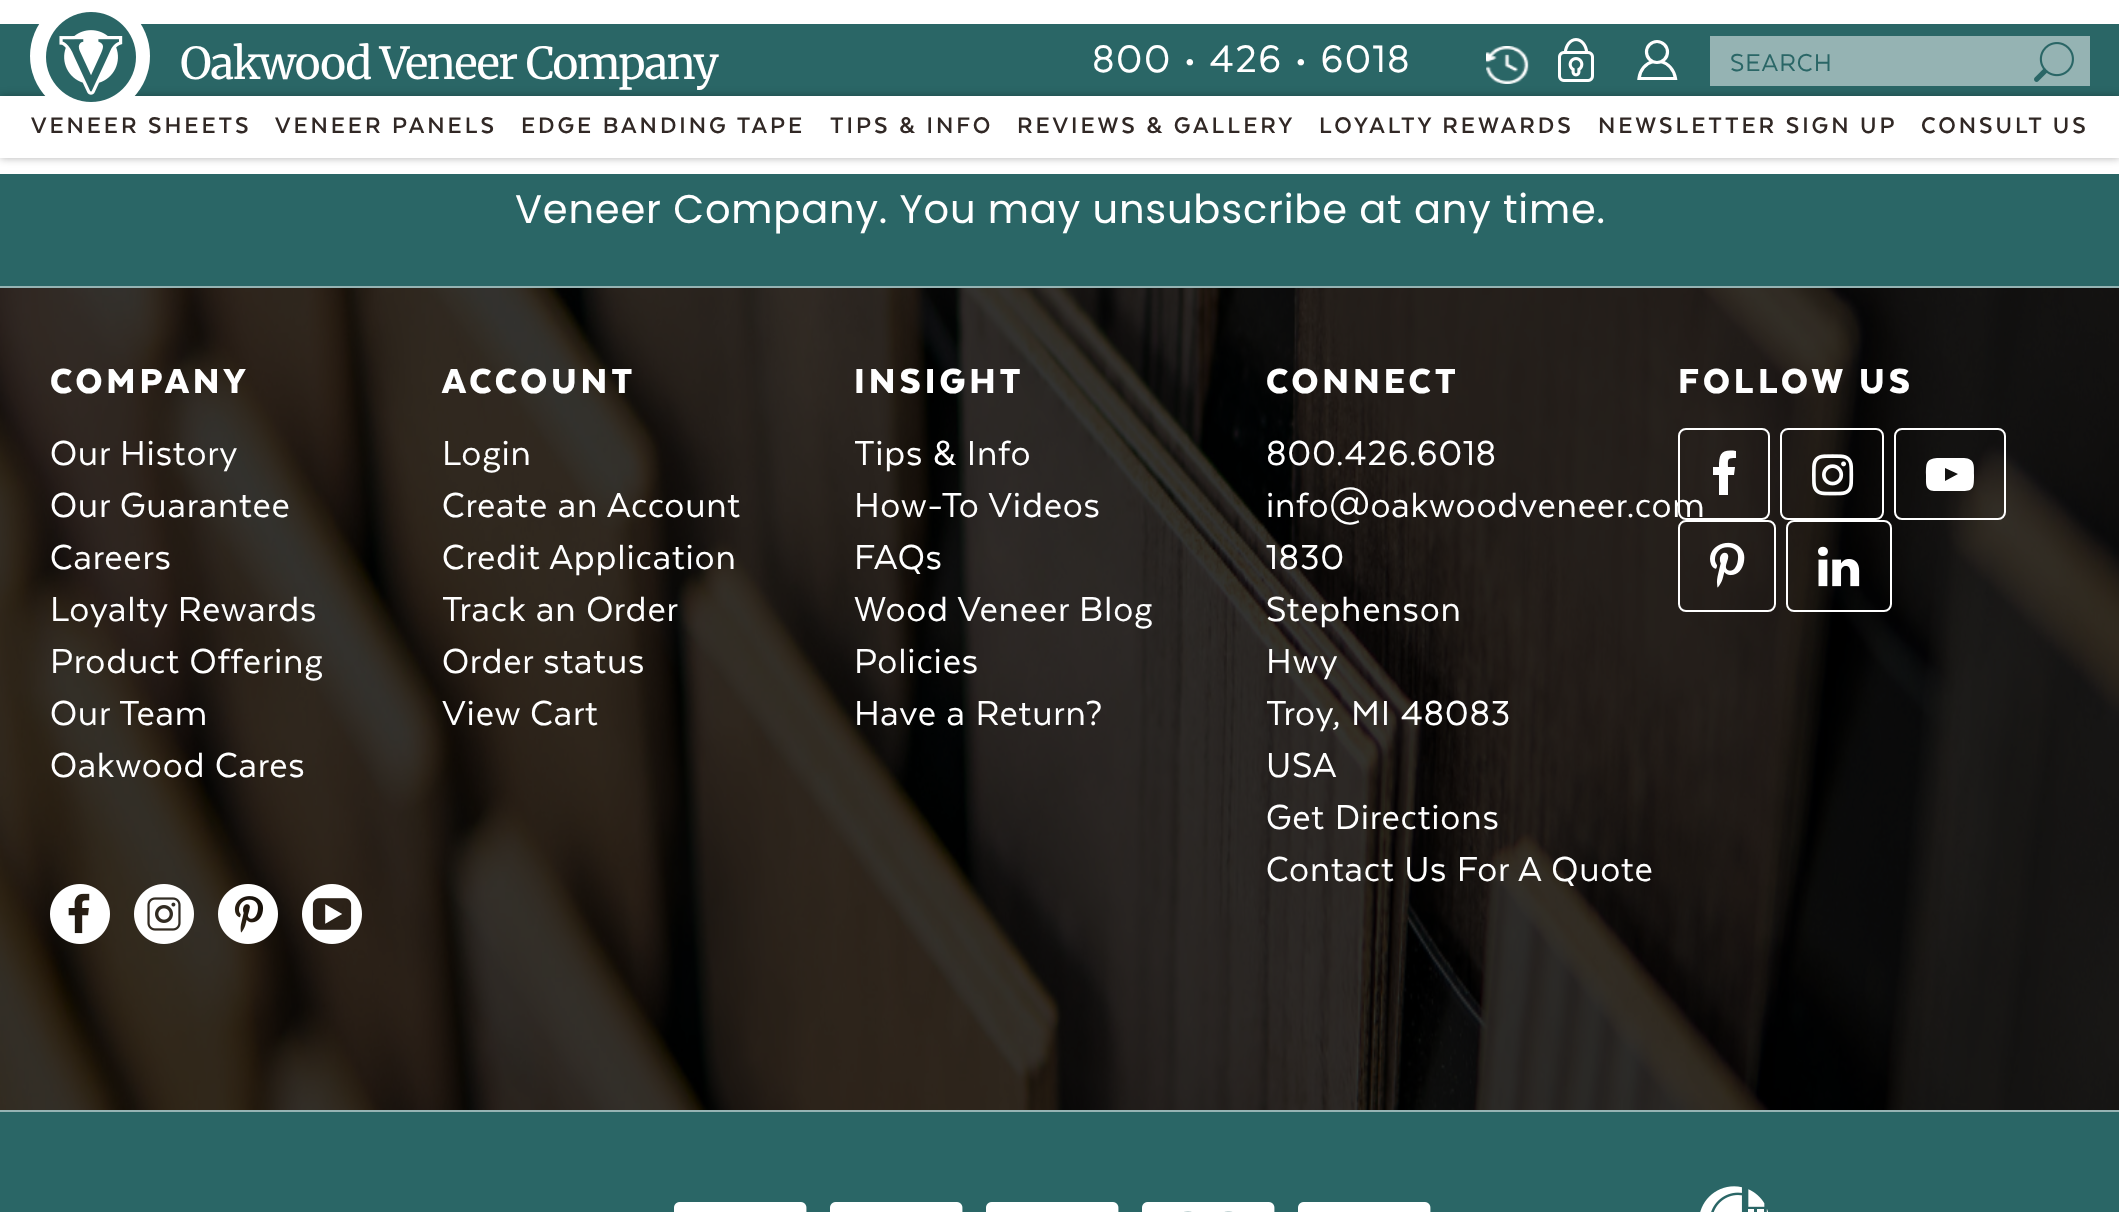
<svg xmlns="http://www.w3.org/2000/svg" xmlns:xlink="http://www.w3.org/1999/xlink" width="2119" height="1212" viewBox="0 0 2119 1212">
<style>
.cls-1{font:44px Merriweather;letter-spacing:-1.4px;fill:#ffffff}
.cls-2{font:44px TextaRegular;letter-spacing:1.5px;fill:#ffffff}
.cls-3{font:28px TextaRegular;letter-spacing:1px;fill:#2a6666}
.cls-4{font:bold 26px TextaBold;letter-spacing:3px;fill:#312825}
.cls-5{font:40px Poppins;letter-spacing:0.8px;fill:#ffffff}
.cls-6{font:900 40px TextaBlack;letter-spacing:4px;fill:#ffffff}
.cls-7{font:40px TextaRegular;letter-spacing:0.8px;fill:#ffffff}
</style>
<defs>
<clipPath id="clip1"><path d="M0 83H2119V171H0ZM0 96H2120V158H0Z" clip-rule="evenodd"/></clipPath>
<clipPath id="clip2"><rect x="1634" y="40" width="46" height="40"/></clipPath>
</defs>
<rect width="100%" height="100%" fill="#2a6666"/>
<rect fill="#ffffff" x="0" y="0" width="2119" height="174"/>
<rect fill="#2a6666" x="0" y="24" width="2119" height="72"/>
<g clip-path="url(#clip1)">
<rect fill="#000000" fill-opacity="0.3" filter="blur(4px)" x="0" y="96" width="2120" height="62"/>
</g>
<image xlink:href="image0.png" x="1486" y="46" width="44" height="38"/>
<image xlink:href="image1.png" x="1558" y="38" width="36" height="44"/>
<g clip-path="url(#clip2)">
<path fill="none" stroke="#ffffff" stroke-width="3.2" d="M1653 61.5C1645.5 63.5 1640 70 1639 78.5H1675.5C1674 70 1668.5 63.5 1661 61.5"/>
</g>
<circle fill="none" stroke="#ffffff" stroke-width="3.2" cx="1657" cy="52" r="10.5"/>
<circle fill="#ffffff" cx="90" cy="56" r="60"/>
<image xlink:href="image2.png" x="46" y="12" width="90" height="90"/>
<rect fill="#95b3b3" x="1710" y="36" width="380" height="50"/>
<image xlink:href="image3.png" x="2034" y="42" width="40" height="40"/>
<image xlink:href="image4.png" x="0" y="288" width="2119" height="822"/>
<rect fill="#95b3b3" x="0" y="286" width="2119" height="2"/>
<rect fill="#95b3b3" x="0" y="1110" width="2119" height="2"/>
<image xlink:href="image5.png" x="50" y="884" width="60" height="60"/>
<image xlink:href="image6.png" x="134" y="884" width="60" height="60"/>
<image xlink:href="image7.png" x="218" y="884" width="60" height="60"/>
<image xlink:href="image8.png" x="302" y="884" width="60" height="60"/>
<rect fill="none" stroke="#ffffff" stroke-width="2" x="1679" y="429" width="90" height="90" rx="7"/>
<path fill="#ffffff" d="M1736 451V458C1727 458 1728 459 1728 467H1735L1734 475H1728V495H1719V475H1713V467H1719C1719 454 1721 449 1736 451Z"/>
<rect fill="none" stroke="#ffffff" stroke-width="2" x="1781" y="429" width="102" height="90" rx="7"/>
<image xlink:href="image9.png" x="1812" y="454" width="42" height="42"/>
<rect fill="none" stroke="#ffffff" stroke-width="2" x="1895" y="429" width="110" height="90" rx="7"/>
<path fill="#ffffff" d="M1945 481L1958 474L1945 468ZM1950 458H1964C1975 459 1974 465 1974 475C1974 487 1974 491 1963 491H1936C1925 491 1926 485 1926 475C1926 463 1926 459 1937 458Z"/>
<rect fill="none" stroke="#ffffff" stroke-width="2" x="1679" y="521" width="96" height="90" rx="7"/>
<image xlink:href="image10.png" x="1710" y="542" width="35" height="46"/>
<rect fill="none" stroke="#ffffff" stroke-width="2" x="1787" y="521" width="104" height="90" rx="7"/>
<image xlink:href="image11.png" x="1818" y="546" width="42" height="41"/>
<image xlink:href="image12.png" x="674" y="1202" width="133" height="10"/>
<image xlink:href="image12.png" x="830" y="1202" width="133" height="10"/>
<image xlink:href="image13.png" x="986" y="1202" width="133" height="10"/>
<image xlink:href="image14.png" x="1142" y="1202" width="133" height="10"/>
<image xlink:href="image13.png" x="1298" y="1202" width="133" height="10"/>
<image xlink:href="image15.png" x="1700" y="1186" width="68" height="26"/>
<text class="cls-1" x="180" y="79">Oakwood Veneer Company</text>
<text class="cls-2" x="1092" y="72">800 • 426 • 6018</text>
<text class="cls-3" x="1730" y="71">SEARCH</text>
<text class="cls-4" x="31" y="133">VENEER SHEETS</text>
<text class="cls-4" x="275" y="133">VENEER PANELS</text>
<text class="cls-4" x="521" y="133">EDGE BANDING TAPE</text>
<text class="cls-4" x="830" y="133">TIPS &amp; INFO</text>
<text class="cls-4" x="1017" y="133">REVIEWS &amp; GALLERY</text>
<text class="cls-4" x="1319" y="133">LOYALTY REWARDS</text>
<text class="cls-4" x="1598" y="133">NEWSLETTER SIGN UP</text>
<text class="cls-4" x="1921" y="133">CONSULT US</text>
<text class="cls-5" x="515" y="223">Veneer Company. You may unsubscribe at any time.</text>
<text class="cls-6" x="50" y="393">COMPANY</text>
<text class="cls-7"><tspan x="50" y="465">Our History</tspan><tspan x="50" y="517">Our Guarantee</tspan><tspan x="50" y="569">Careers</tspan><tspan x="50" y="621">Loyalty Rewards</tspan><tspan x="50" y="673">Product Offering</tspan><tspan x="50" y="725">Our Team</tspan><tspan x="50" y="777">Oakwood Cares</tspan></text>
<text class="cls-6" x="442" y="393">ACCOUNT</text>
<text class="cls-7"><tspan x="442" y="465">Login</tspan><tspan x="442" y="517">Create an Account</tspan><tspan x="442" y="569">Credit Application</tspan><tspan x="442" y="621">Track an Order</tspan><tspan x="442" y="673">Order status</tspan><tspan x="442" y="725">View Cart</tspan></text>
<text class="cls-6" x="854" y="393">INSIGHT</text>
<text class="cls-7"><tspan x="854" y="465">Tips &amp; Info</tspan><tspan x="854" y="517">How-To Videos</tspan><tspan x="854" y="569">FAQs</tspan><tspan x="854" y="621">Wood Veneer Blog</tspan><tspan x="854" y="673">Policies</tspan><tspan x="854" y="725">Have a Return?</tspan></text>
<text class="cls-6" x="1266" y="393">CONNECT</text>
<text class="cls-7"><tspan x="1266" y="465">800.426.6018</tspan><tspan x="1266" y="517">info@oakwoodveneer.com</tspan><tspan x="1266" y="569">1830</tspan><tspan x="1266" y="621">Stephenson</tspan><tspan x="1266" y="673">Hwy</tspan><tspan x="1266" y="725">Troy, MI 48083</tspan><tspan x="1266" y="777">USA</tspan><tspan x="1266" y="829">Get Directions</tspan><tspan x="1266" y="881">Contact Us For A Quote</tspan></text>
<text class="cls-6" x="1678" y="393">FOLLOW US</text>
</svg>
